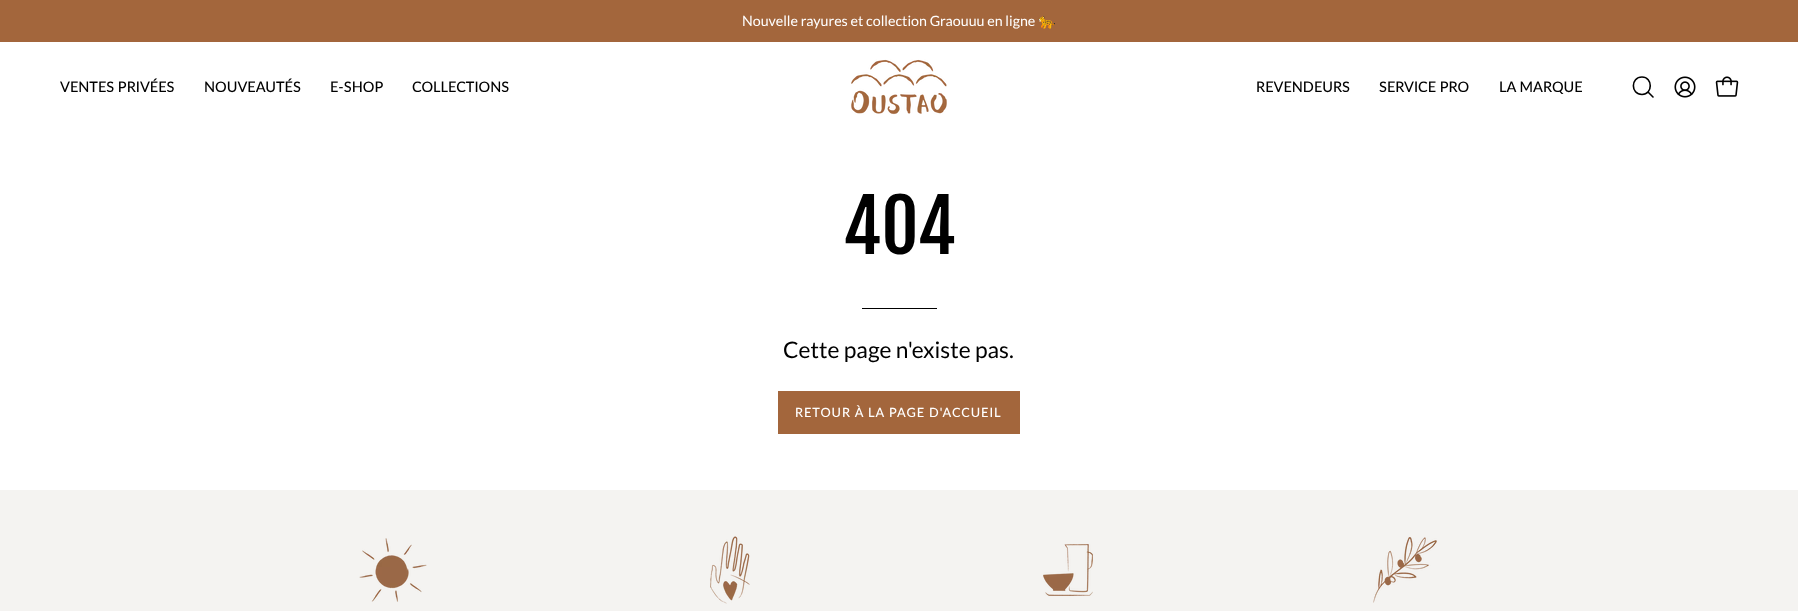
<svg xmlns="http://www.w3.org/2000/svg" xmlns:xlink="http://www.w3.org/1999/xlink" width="1798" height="611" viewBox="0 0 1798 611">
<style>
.cls-1{font:14.25px Lato;fill:#ffffff}
.cls-2{font:14.25px Noto Color Emoji;fill:#ffffff}
.cls-3{font:500 14.5px Lato;fill:#000000}
.cls-4{font:72px Fjalla One;fill:#000000}
.cls-5{font:22.75px Lato;fill:#000000}
.cls-6{font:500 12.75px Lato;letter-spacing:0.95px;fill:#ffffff}
</style>
<rect width="100%" height="100%" fill="#ffffff"/>
<rect fill="#a3663c" x="0" y="0" width="1798" height="42"/>
<image xlink:href="image0.png" x="851" y="59" width="96" height="56"/>
<path fill="none" stroke="#000000" stroke-width="1.6" stroke-linecap="round" stroke-linejoin="round" d="M1642 94.5C1653 94.5 1653 77 1642 77C1630.5 77 1630.5 94.5 1642 94.5ZM1648 92L1653 97"/>
<image xlink:href="image1.png" x="1674" y="76" width="22" height="22"/>
<image xlink:href="image2.png" x="1715" y="76" width="24" height="21"/>
<rect fill="#000000" x="862" y="308" width="75" height="1"/>
<rect fill="#a3663c" x="778" y="391" width="242" height="43"/>
<rect fill="#f4f3f1" x="0" y="490" width="1798" height="121"/>
<image xlink:href="image3.png" x="359" y="538" width="68" height="64"/>
<image xlink:href="image4.png" x="710" y="536" width="40" height="68"/>
<image xlink:href="image5.png" x="1043" y="544" width="50" height="52"/>
<image xlink:href="image6.png" x="1373" y="537" width="64" height="66"/>
<text class="cls-1" x="742" y="26">Nouvelle rayures et collection Graouuu en ligne</text>
<text class="cls-2" x="1038" y="26">🐆</text>
<text class="cls-3" x="60" y="92">VENTES PRIVÉES</text>
<text class="cls-3" x="204" y="92">NOUVEAUTÉS</text>
<text class="cls-3" x="330" y="92">E-SHOP</text>
<text class="cls-3" x="412" y="92">COLLECTIONS</text>
<text class="cls-3" x="1256" y="92">REVENDEURS</text>
<text class="cls-3" x="1379" y="92">SERVICE PRO</text>
<text class="cls-3" x="1499" y="92">LA MARQUE</text>
<text class="cls-4" x="843" y="254">404</text>
<text class="cls-5" x="783" y="358">Cette page n'existe pas.</text>
<text class="cls-6" x="795" y="417">RETOUR À LA PAGE D'ACCUEIL</text>
</svg>
